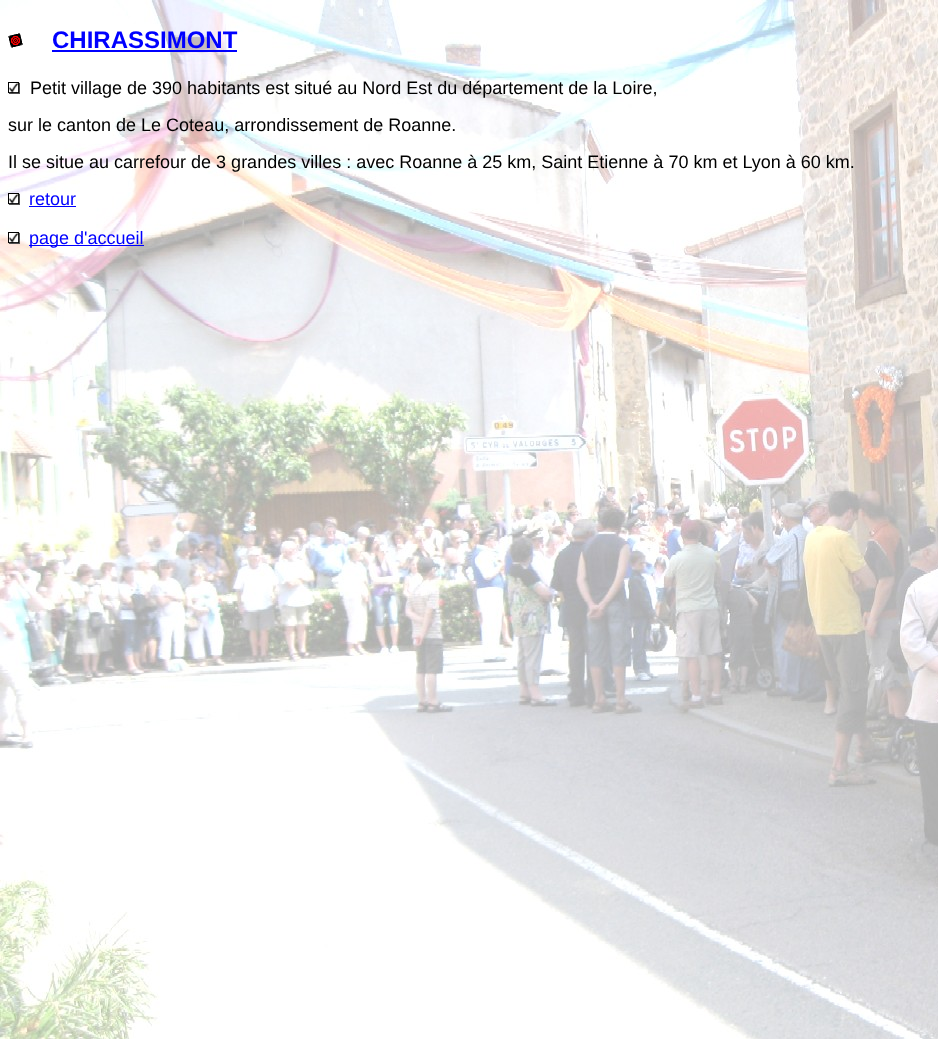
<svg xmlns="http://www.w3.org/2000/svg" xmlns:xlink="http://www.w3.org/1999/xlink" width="938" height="1039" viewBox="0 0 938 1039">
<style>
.cls-1{font:bold 24px Liberation Sans;fill:#0000ff}
.cls-2{font:18px Liberation Sans;fill:#000000}
.cls-3{font:18px Liberation Sans;fill:#0000ff}
</style>
<rect width="100%" height="100%" fill="#ffffff"/>
<image xlink:href="image0.png" x="0" y="0" width="938" height="1039"/>
<image xlink:href="image1.png" x="8" y="33" width="15" height="15"/>
<rect fill="#0000ff" x="52" y="50" width="185" height="2"/>
<image xlink:href="image2.png" x="8" y="82" width="12" height="12"/>
<image xlink:href="image3.png" x="8" y="193" width="12" height="12"/>
<rect fill="#0000ff" x="29" y="206" width="47" height="1"/>
<image xlink:href="image4.png" x="8" y="232" width="12" height="12"/>
<rect fill="#0000ff" x="29" y="245" width="115" height="1"/>
<text class="cls-1" x="52" y="48">CHIRASSIMONT</text>
<text class="cls-2" x="30" y="94">Petit village de 390 habitants est situé au Nord Est du département de la Loire,</text>
<text class="cls-2" x="8" y="131">sur le canton de Le Coteau, arrondissement de Roanne.</text>
<text class="cls-2" x="8" y="168">Il se situe au carrefour de 3 grandes villes : avec Roanne à 25 km, Saint Etienne à 70 km et Lyon à 60 km.</text>
<text class="cls-3" x="29" y="205">retour</text>
<text class="cls-3" x="29" y="244">page d'accueil</text>
</svg>
